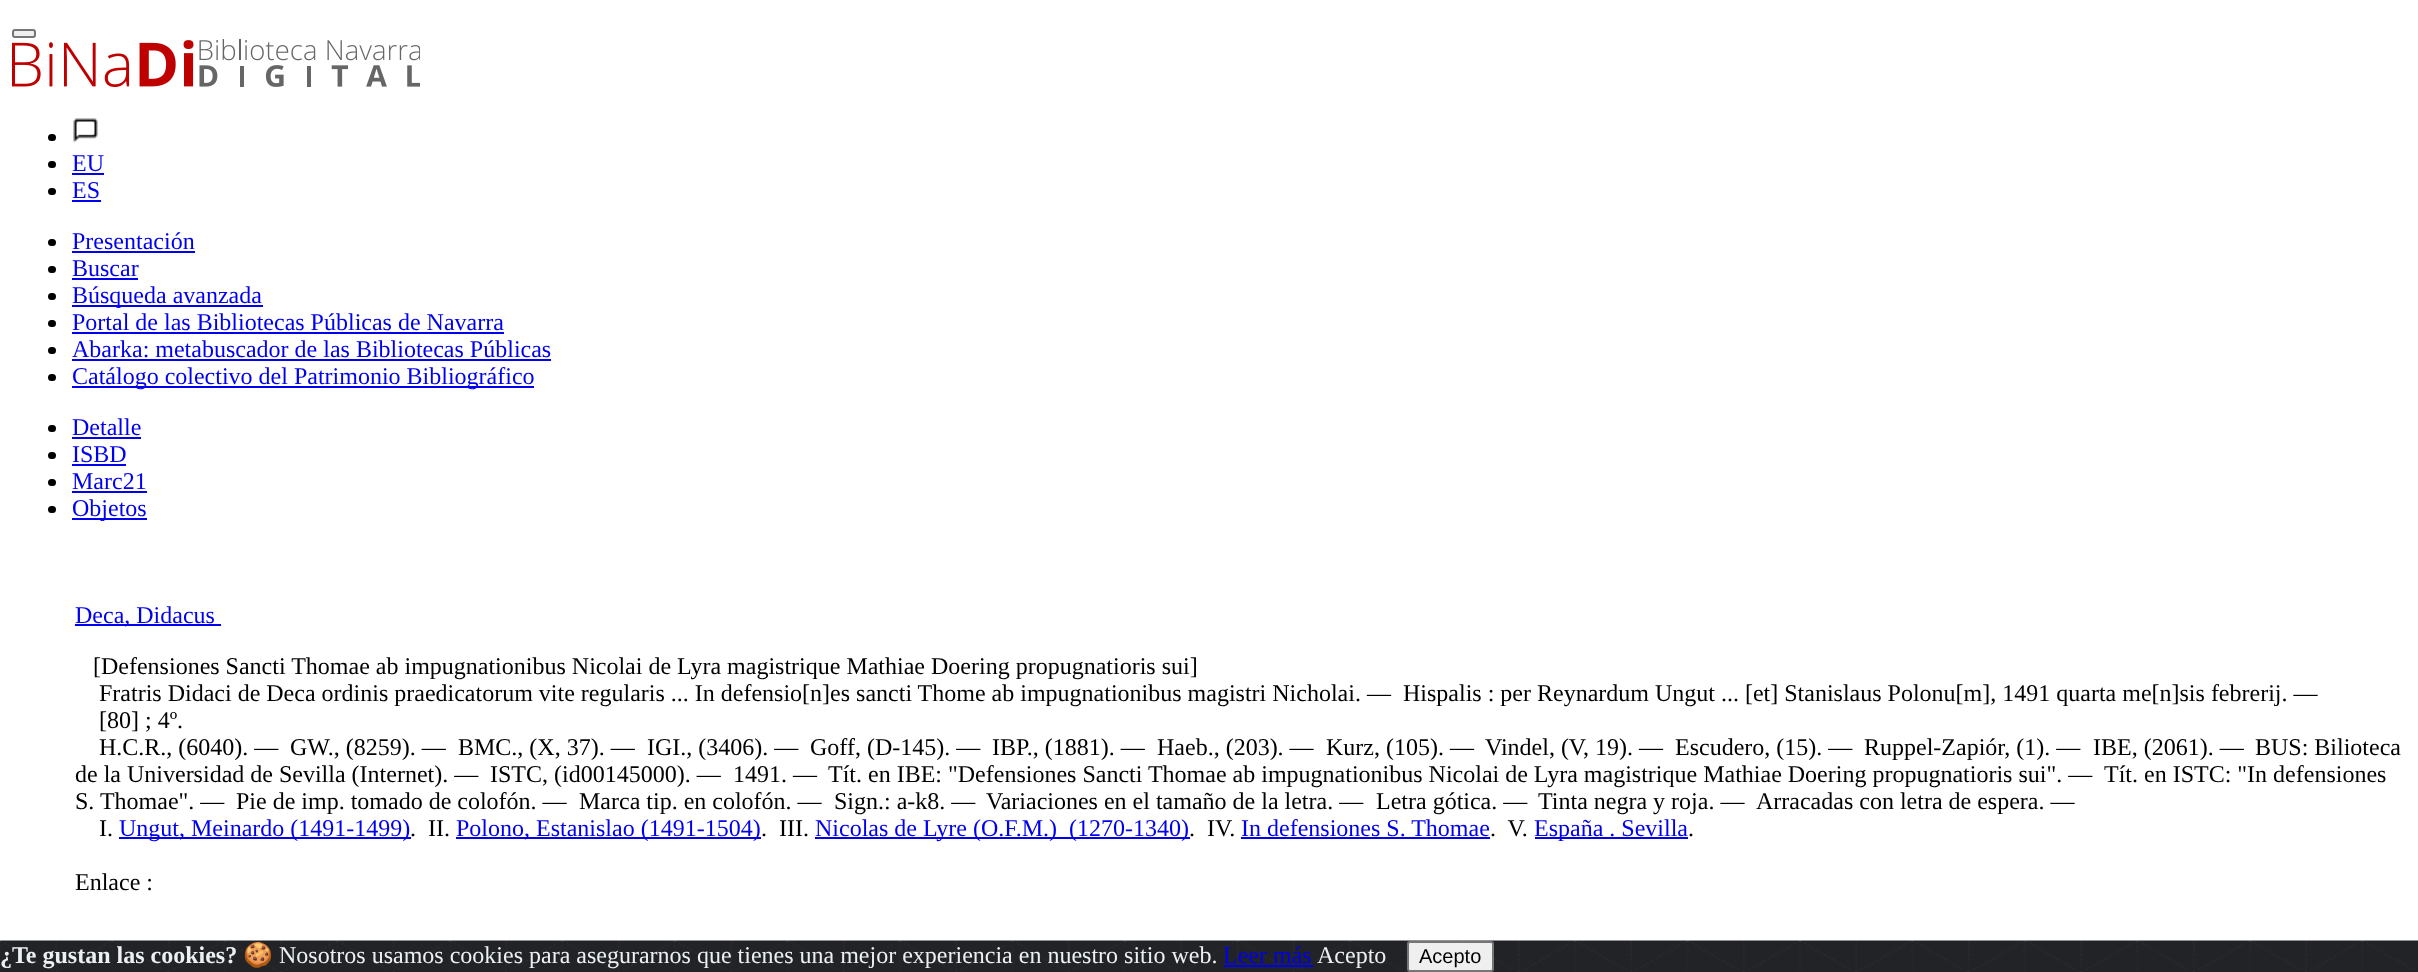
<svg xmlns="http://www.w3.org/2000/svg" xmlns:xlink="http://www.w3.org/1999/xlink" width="2418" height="972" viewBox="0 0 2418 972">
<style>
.cls-1{font:24px Liberation Serif;fill:#0000ee}
.cls-2{font:24px Liberation Serif;fill:#000000}
.cls-3{font:bold 24px Liberation Serif;fill:#ecf0f1}
.cls-4{font:24px Noto Color Emoji;fill:#ecf0f1}
.cls-5{font:24px Liberation Serif;fill:#ecf0f1}
.cls-6{font:20px Liberation Sans;fill:#000000}
</style>
<rect width="100%" height="100%" fill="#ffffff"/>
<rect fill="#efefef" stroke="#767676" stroke-width="2" x="13" y="30" width="22" height="7" rx="2"/>
<image xlink:href="image0.png" x="12" y="39" width="408" height="48"/>
<rect fill="#000000" x="48" y="134" width="8" height="7" rx="3.5"/>
<image xlink:href="image1.png" x="73" y="118" width="25" height="25"/>
<rect fill="#000000" x="48" y="161" width="8" height="7" rx="3.5"/>
<rect fill="#0000ee" x="72" y="173" width="32" height="2"/>
<rect fill="#000000" x="48" y="188" width="8" height="7" rx="3.5"/>
<rect fill="#0000ee" x="72" y="200" width="29" height="2"/>
<rect fill="#000000" x="48" y="239" width="8" height="7" rx="3.5"/>
<rect fill="#0000ee" x="72" y="251" width="123" height="2"/>
<rect fill="#000000" x="48" y="266" width="8" height="7" rx="3.5"/>
<rect fill="#0000ee" x="72" y="278" width="66" height="2"/>
<rect fill="#000000" x="48" y="293" width="8" height="7" rx="3.5"/>
<rect fill="#0000ee" x="72" y="305" width="191" height="2"/>
<rect fill="#000000" x="48" y="320" width="8" height="7" rx="3.5"/>
<rect fill="#0000ee" x="72" y="332" width="432" height="2"/>
<rect fill="#000000" x="48" y="347" width="8" height="7" rx="3.5"/>
<rect fill="#0000ee" x="72" y="359" width="479" height="2"/>
<rect fill="#000000" x="48" y="374" width="8" height="7" rx="3.5"/>
<rect fill="#0000ee" x="72" y="386" width="462" height="2"/>
<rect fill="#000000" x="48" y="425" width="8" height="7" rx="3.5"/>
<rect fill="#0000ee" x="72" y="437" width="69" height="2"/>
<rect fill="#000000" x="48" y="452" width="8" height="7" rx="3.5"/>
<rect fill="#0000ee" x="72" y="464" width="54" height="2"/>
<rect fill="#000000" x="48" y="479" width="8" height="7" rx="3.5"/>
<rect fill="#0000ee" x="72" y="491" width="75" height="2"/>
<rect fill="#000000" x="48" y="506" width="8" height="7" rx="3.5"/>
<rect fill="#0000ee" x="72" y="518" width="75" height="2"/>
<rect fill="#0000ee" x="75" y="624" width="146" height="2"/>
<rect fill="#0000ee" x="119" y="837" width="292" height="2"/>
<rect fill="#0000ee" x="456" y="837" width="305" height="2"/>
<rect fill="#0000ee" x="815" y="837" width="375" height="2"/>
<rect fill="#0000ee" x="1241" y="837" width="249" height="2"/>
<rect fill="#0000ee" x="1535" y="837" width="153" height="2"/>
<image xlink:href="image2.png" x="0" y="940" width="2418" height="32"/>
<rect fill="#0000ee" x="1224" y="965" width="89" height="2"/>
<rect fill="#efefef" stroke="#767676" stroke-width="2" x="1408" y="942" width="85" height="29" rx="2"/>
<text class="cls-1"><tspan x="72" y="171">EU</tspan><tspan x="72" y="198">ES</tspan></text>
<text class="cls-1"><tspan x="72" y="249">Presentación</tspan><tspan x="72" y="276">Buscar</tspan><tspan x="72" y="303">Búsqueda avanzada</tspan><tspan x="72" y="330">Portal de las Bibliotecas Públicas de Navarra</tspan><tspan x="72" y="357">Abarka: metabuscador de las Bibliotecas Públicas</tspan><tspan x="72" y="384">Catálogo colectivo del Patrimonio Bibliográfico</tspan></text>
<text class="cls-1"><tspan x="72" y="435">Detalle</tspan><tspan x="72" y="462">ISBD</tspan><tspan x="72" y="489">Marc21</tspan><tspan x="72" y="516">Objetos</tspan></text>
<text class="cls-1" x="75" y="623">Deca, Didacus</text>
<text class="cls-2" x="93" y="674">[Defensiones Sancti Thomae ab impugnationibus Nicolai de Lyra magistrique Mathiae Doering propugnatioris sui]</text>
<text class="cls-2" x="99" y="701">Fratris Didaci de Deca ordinis praedicatorum vite regularis ... In defensio[n]es sancti Thome ab impugnationibus magistri Nicholai. —</text>
<text class="cls-2" x="1403" y="701">Hispalis : per Reynardum Ungut ... [et] Stanislaus Polonu[m], 1491 quarta me[n]sis febrerij. —</text>
<text class="cls-2"><tspan x="99" y="728">[80] ; 4º.</tspan><tspan x="99" y="755">H.C.R., (6040). —</tspan></text>
<text class="cls-2" x="290" y="755">GW., (8259). —</text>
<text class="cls-2" x="458" y="755">BMC., (X, 37). —</text>
<text class="cls-2" x="647" y="755">IGI., (3406). —</text>
<text class="cls-2" x="810" y="755">Goff, (D-145). —</text>
<text class="cls-2" x="992" y="755">IBP., (1881). —</text>
<text class="cls-2" x="1157" y="755">Haeb., (203). —</text>
<text class="cls-2" x="1326" y="755">Kurz, (105). —</text>
<text class="cls-2" x="1485" y="755">Vindel, (V, 19). —</text>
<text class="cls-2" x="1675" y="755">Escudero, (15). —</text>
<text class="cls-2" x="1864" y="755">Ruppel-Zapiór, (1). —</text>
<text class="cls-2" x="2093" y="755">IBE, (2061). —</text>
<text class="cls-2" x="2255" y="755">BUS: Bilioteca</text>
<text class="cls-2" x="75" y="782">de la Universidad de Sevilla (Internet). —</text>
<text class="cls-2" x="490" y="782">ISTC, (id00145000). —</text>
<text class="cls-2" x="733" y="782">1491. —</text>
<text class="cls-2" x="828" y="782">Tít. en IBE: "Defensiones Sancti Thomae ab impugnationibus Nicolai de Lyra magistrique Mathiae Doering propugnatioris sui". —</text>
<text class="cls-2" x="2104" y="782">Tít. en ISTC: "In defensiones</text>
<text class="cls-2" x="75" y="809">S. Thomae". —</text>
<text class="cls-2" x="236" y="809">Pie de imp. tomado de colofón. —</text>
<text class="cls-2" x="579" y="809">Marca tip. en colofón. —</text>
<text class="cls-2" x="834" y="809">Sign.: a-k8. —</text>
<text class="cls-2" x="986" y="809">Variaciones en el tamaño de la letra. —</text>
<text class="cls-2" x="1376" y="809">Letra gótica. —</text>
<text class="cls-2" x="1538" y="809">Tinta negra y roja. —</text>
<text class="cls-2" x="1756" y="809">Arracadas con letra de espera. —</text>
<text class="cls-2" x="99" y="836">I.</text>
<text class="cls-1" x="119" y="836">Ungut, Meinardo (1491-1499)</text>
<text class="cls-2" xml:space="preserve" x="410" y="836">.  II.</text>
<text class="cls-1" x="456" y="836">Polono, Estanislao (1491-1504)</text>
<text class="cls-2" xml:space="preserve" x="761" y="836">.  III.</text>
<text class="cls-1" xml:space="preserve" x="815" y="836">Nicolas de Lyre (O.F.M.)  (1270-1340)</text>
<text class="cls-2" xml:space="preserve" x="1189" y="836">.  IV.</text>
<text class="cls-1" x="1241" y="836">In defensiones S. Thomae</text>
<text class="cls-2" xml:space="preserve" x="1490" y="836">.  V.</text>
<text class="cls-1" x="1534" y="836">España . Sevilla</text>
<text class="cls-2" x="1688" y="836">.</text>
<text class="cls-2" x="75" y="890">Enlace :</text>
<text class="cls-3" x="0" y="963">¿Te gustan las cookies?</text>
<text class="cls-4" x="243" y="963">🍪</text>
<text class="cls-5" x="279" y="963">Nosotros usamos cookies para asegurarnos que tienes una mejor experiencia en nuestro sitio web.</text>
<text class="cls-1" x="1223" y="963">Leer más</text>
<text class="cls-5" x="1317" y="963">Acepto</text>
<text class="cls-6" x="1419" y="963">Acepto</text>
</svg>
